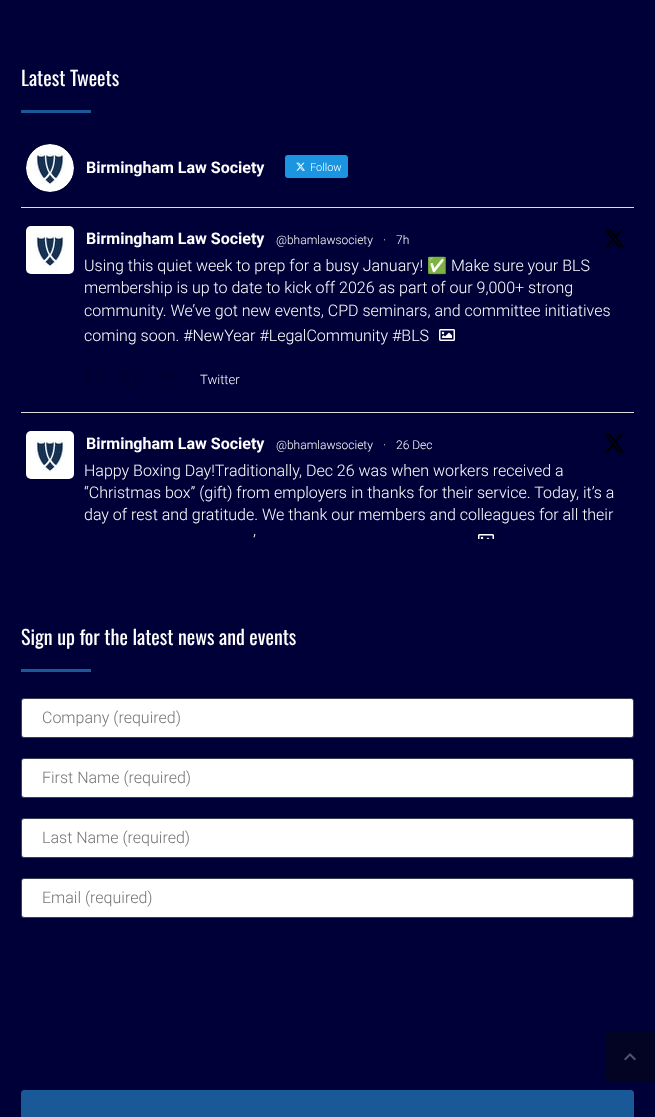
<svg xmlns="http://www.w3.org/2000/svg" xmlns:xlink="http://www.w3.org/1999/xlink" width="655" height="1117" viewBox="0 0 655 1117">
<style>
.cls-1{font:20px Oswald;fill:#ffffff}
.cls-2{font:bold 16px Roboto;fill:#ffffff}
.cls-3{font:300 11px Roboto;fill:#ffffff}
.cls-4{font:300 12px Roboto;fill:#ffffff}
.cls-5{font:300 16px Roboto;fill:#ffffff}
.cls-6{font:16px Noto Color Emoji;fill:#ffffff}
.cls-7{font:300 13px Roboto;fill:#ffffff}
.cls-8{font:300 16px Roboto;fill:#757575}
</style>
<defs>
<clipPath id="clip1"><rect x="21" y="413" width="613" height="126"/></clipPath>
</defs>
<rect width="100%" height="100%" fill="#000038"/>
<rect fill="#195997" x="21" y="110" width="70" height="3"/>
<rect fill="#dddddd" x="21" y="207" width="613" height="1"/>
<image xlink:href="image0.png" x="26" y="144" width="48" height="48"/>
<rect fill="#1b95e0" x="285" y="155" width="63" height="23" rx="3"/>
<image xlink:href="image1.png" x="296" y="162" width="9" height="9"/>
<rect fill="#dddddd" x="21" y="412" width="613" height="1"/>
<image xlink:href="image2.png" x="26" y="226" width="48" height="48"/>
<image xlink:href="image3.png" x="604" y="229" width="21" height="19"/>
<rect fill="none" stroke="#000030" x="434.5" y="322.5" width="25" height="26" rx="1.5"/>
<image xlink:href="image4.png" x="439" y="329" width="16" height="12"/>
<image xlink:href="image5.png" x="85" y="371" width="15" height="15"/>
<image xlink:href="image6.png" x="121" y="372" width="18" height="13"/>
<image xlink:href="image7.png" x="161" y="372" width="15" height="14"/>
<image xlink:href="image8.png" x="26" y="431" width="48" height="48"/>
<image xlink:href="image3.png" x="604" y="434" width="21" height="19"/>
<g clip-path="url(#clip1)">
<rect fill="none" stroke="#000030" x="473.5" y="527.5" width="25" height="26" rx="1.5"/>
</g>
<image xlink:href="image9.png" x="478" y="534" width="16" height="5"/>
<rect fill="#195997" x="21" y="669" width="70" height="3"/>
<rect fill="#ffffff" stroke="#394050" x="21.5" y="698.5" width="612" height="39" rx="2.5"/>
<rect fill="#ffffff" stroke="#394050" x="21.5" y="758.5" width="612" height="39" rx="2.5"/>
<rect fill="#ffffff" stroke="#394050" x="21.5" y="818.5" width="612" height="39" rx="2.5"/>
<rect fill="#ffffff" stroke="#394050" x="21.5" y="878.5" width="612" height="39" rx="2.5"/>
<path fill="#195997" d="M24 1090H631C632.5 1090 634 1091.5 634 1093V1117H21V1093C21 1091.5 22.5 1090 24 1090Z"/>
<rect fill="#030324" x="605" y="1032" width="50" height="50"/>
<image xlink:href="image10.png" x="624" y="1053" width="12" height="8"/>
<text class="cls-1" x="21" y="86">Latest Tweets</text>
<text class="cls-2" x="86" y="173">Birmingham Law Society</text>
<text class="cls-3" x="310" y="171">Follow</text>
<text class="cls-2" x="86" y="244">Birmingham Law Society</text>
<text class="cls-4" x="276" y="244">@bhamlawsociety</text>
<text class="cls-4" x="383" y="244">·</text>
<text class="cls-4" x="396" y="244">7h</text>
<text class="cls-5" x="84" y="271">Using this quiet week to prep for a busy January!</text>
<text class="cls-6" x="427" y="271">✅</text>
<text class="cls-5" x="451" y="271">Make sure your BLS</text>
<text class="cls-5"><tspan x="84" y="293">membership is up to date to kick off 2026 as part of our 9,000+ strong</tspan><tspan x="84" y="316">community. We’ve got new events, CPD seminars, and committee initiatives</tspan><tspan x="84" y="341">coming soon. #NewYear #LegalCommunity #BLS</tspan></text>
<text class="cls-7" x="200" y="384">Twitter</text>
<text class="cls-2" x="86" y="449">Birmingham Law Society</text>
<text class="cls-4" x="276" y="449">@bhamlawsociety</text>
<text class="cls-4" x="383" y="449">·</text>
<text class="cls-4" x="396" y="449">26 Dec</text>
<text class="cls-5"><tspan x="84" y="476">Happy Boxing Day!Traditionally, Dec 26 was when workers received a</tspan><tspan x="84" y="498">“Christmas box” (gift) from employers in thanks for their service. Today, it’s a</tspan><tspan x="84" y="520">day of rest and gratitude. We thank our members and colleagues for all their</tspan></text>
<text class="cls-5" x="253" y="546">’</text>
<text class="cls-1" x="21" y="645">Sign up for the latest news and events</text>
<text class="cls-8" x="42" y="723">Company (required)</text>
<text class="cls-8" x="42" y="783">First Name (required)</text>
<text class="cls-8" x="42" y="843">Last Name (required)</text>
<text class="cls-8" x="42" y="903">Email (required)</text>
</svg>
